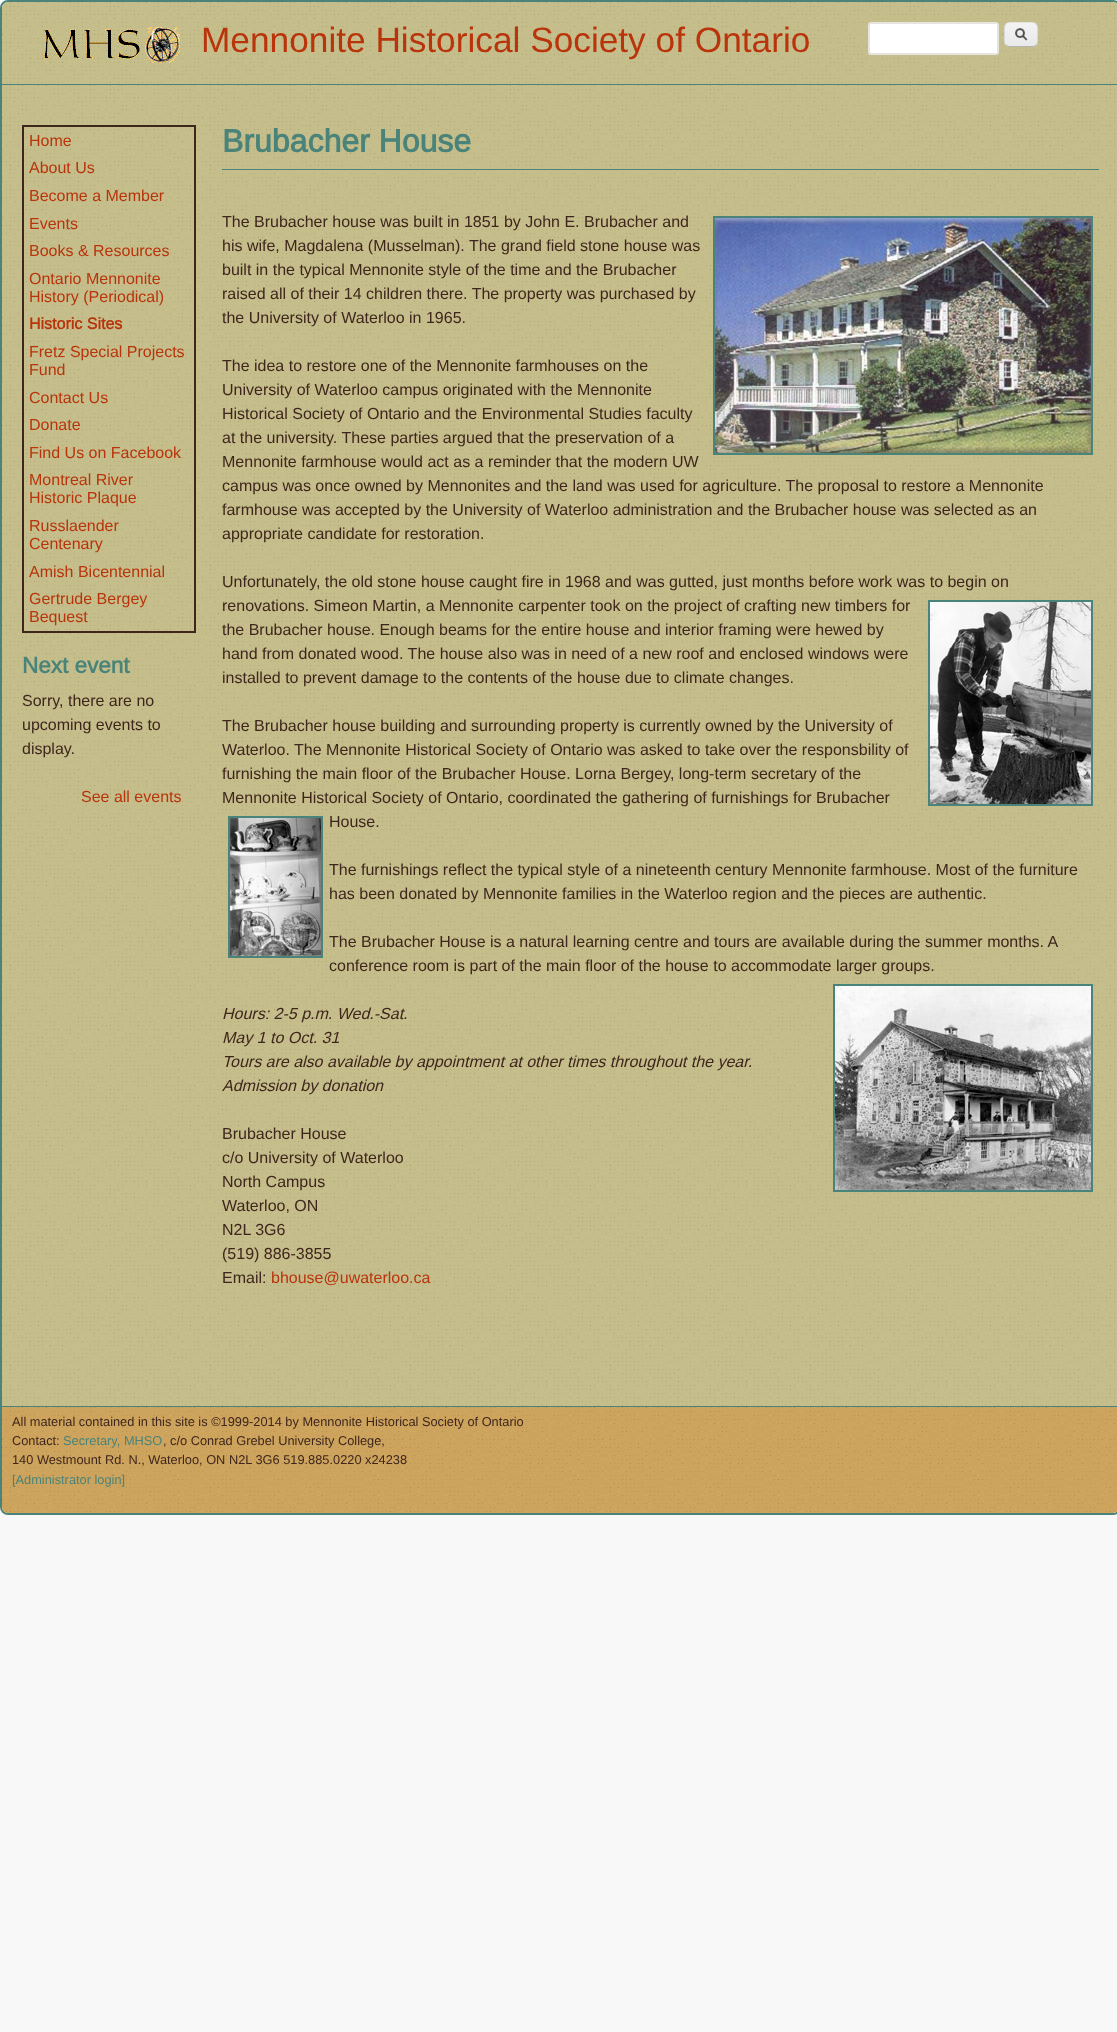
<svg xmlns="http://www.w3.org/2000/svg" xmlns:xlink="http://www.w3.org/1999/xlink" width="1117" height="2032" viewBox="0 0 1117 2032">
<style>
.cls-1{font:35.25px Arimo;fill:#b9340b}
.cls-2{font:16px Arimo;fill:#b9340b}
.cls-3{font:bold 16px Arimo;fill:#b9340b}
.cls-4{font:bold 22.5px Arimo;fill:#498379}
.cls-5{font:16px Arimo;fill:#3f261c}
.cls-6{font:bold 32px Arimo;fill:#498379}
.cls-7{font:italic 16px Arimo;fill:#3f261c}
.cls-8{font:12.8px Arimo;fill:#3f261c}
.cls-9{font:12.8px Arimo;fill:#498379}
</style>
<rect width="100%" height="100%" fill="#f8f8f8"/>
<rect fill="none" stroke="#498379" stroke-width="2" x="1" y="1" width="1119" height="1513" rx="7"/>
<path fill="#c5be8b" d="M8 2H1113C1116.5 2 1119 4.5 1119 8V85H2V8C2 4.5 4.5 2 8 2Z"/>
<image xlink:href="image0.png" x="2" y="2" width="1113" height="81"/>
<rect fill="#498379" x="2" y="84" width="1115" height="1"/>
<image xlink:href="image1.png" x="43" y="27" width="137" height="36"/>
<rect fill="#ffffff" stroke="#e6e4de" stroke-width="2" x="869" y="23" width="129" height="31" rx="2"/>
<image xlink:href="image2.png" x="1004" y="23" width="34" height="24"/>
<path fill="none" stroke="#e4e4e4" d="M1006 24C1007 23 1008.5 22.5 1010 22.5H1032C1033.5 22.5 1035 23 1036 24"/>
<path fill="none" stroke="#d2d2d2" d="M1036 24C1038.5 26.5 1037.5 31.5 1037.5 34.5C1037.5 37.5 1038.5 42.5 1036 45"/>
<path fill="none" stroke="#b4b4b4" d="M1036 45C1035 46 1033.5 46.5 1032 46.5H1010C1008.5 46.5 1007 46 1006 45"/>
<path fill="none" stroke="#d2d2d2" d="M1006 45C1003.5 42.5 1004.5 37.5 1004.5 34.5C1004.5 31.5 1003.5 26.5 1006 24"/>
<rect fill="#c5be8b" x="2" y="85" width="1115" height="1321"/>
<image xlink:href="image3.png" x="2" y="85" width="1113" height="1321"/>
<rect fill="none" stroke="#3f261c" stroke-width="2" x="23" y="126" width="172" height="506"/>
<rect fill="#498379" x="222" y="169" width="877" height="1"/>
<rect fill="none" stroke="#498379" stroke-width="2" x="714" y="217" width="378" height="237"/>
<image xlink:href="image4.png" x="715" y="218" width="376" height="235"/>
<rect fill="none" stroke="#498379" stroke-width="2" x="929" y="601" width="163" height="204"/>
<image xlink:href="image5.png" x="930" y="602" width="161" height="202"/>
<rect fill="none" stroke="#498379" stroke-width="2" x="229" y="817" width="93" height="140"/>
<image xlink:href="image6.png" x="230" y="818" width="91" height="138"/>
<rect fill="none" stroke="#498379" stroke-width="2" x="834" y="985" width="258" height="206"/>
<image xlink:href="image7.png" x="835" y="986" width="256" height="204"/>
<path fill="#cea45c" d="M2 1406H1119V1507C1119 1510.5 1116.5 1513 1113 1513H8C4.5 1513 2 1510.5 2 1507Z"/>
<image xlink:href="image8.png" x="2" y="1407" width="1113" height="105"/>
<rect fill="#498379" x="2" y="1406" width="1115" height="1"/>
<text class="cls-1" x="201" y="52">Mennonite Historical Society of Ontario</text>
<text class="cls-2"><tspan x="29" y="146">Home</tspan><tspan x="29" y="173">About Us</tspan><tspan x="29" y="201">Become a Member</tspan><tspan x="29" y="229">Events</tspan><tspan x="29" y="256">Books &amp; Resources</tspan><tspan x="29" y="284">Ontario Mennonite</tspan><tspan x="29" y="302">History (Periodical)</tspan></text>
<text class="cls-3" x="29" y="329">Historic Sites</text>
<text class="cls-2"><tspan x="29" y="357">Fretz Special Projects</tspan><tspan x="29" y="375">Fund</tspan><tspan x="29" y="403">Contact Us</tspan><tspan x="29" y="430">Donate</tspan><tspan x="29" y="458">Find Us on Facebook</tspan><tspan x="29" y="485">Montreal River</tspan><tspan x="29" y="503">Historic Plaque</tspan><tspan x="29" y="531">Russlaender</tspan><tspan x="29" y="549">Centenary</tspan><tspan x="29" y="577">Amish Bicentennial</tspan><tspan x="29" y="604">Gertrude Bergey</tspan><tspan x="29" y="622">Bequest</tspan></text>
<text class="cls-4" x="22" y="673">Next event</text>
<text class="cls-5"><tspan x="22" y="706">Sorry, there are no</tspan><tspan x="22" y="730">upcoming events to</tspan><tspan x="22" y="754">display.</tspan></text>
<text class="cls-2" x="81" y="802">See all events</text>
<text class="cls-6" x="222" y="152">Brubacher House</text>
<text class="cls-5"><tspan x="222" y="227">The Brubacher house was built in 1851 by John E. Brubacher and</tspan><tspan x="222" y="251">his wife, Magdalena (Musselman). The grand field stone house was</tspan><tspan x="222" y="275">built in the typical Mennonite style of the time and the Brubacher</tspan><tspan x="222" y="299">raised all of their 14 children there. The property was purchased by</tspan><tspan x="222" y="323">the University of Waterloo in 1965.</tspan></text>
<text class="cls-5"><tspan x="222" y="371">The idea to restore one of the Mennonite farmhouses on the</tspan><tspan x="222" y="395">University of Waterloo campus originated with the Mennonite</tspan><tspan x="222" y="419">Historical Society of Ontario and the Environmental Studies faculty</tspan><tspan x="222" y="443">at the university. These parties argued that the preservation of a</tspan><tspan x="222" y="467">Mennonite farmhouse would act as a reminder that the modern UW</tspan><tspan x="222" y="491">campus was once owned by Mennonites and the land was used for agriculture. The proposal to restore a Mennonite</tspan><tspan x="222" y="515">farmhouse was accepted by the University of Waterloo administration and the Brubacher house was selected as an</tspan><tspan x="222" y="539">appropriate candidate for restoration.</tspan></text>
<text class="cls-5"><tspan x="222" y="587">Unfortunately, the old stone house caught fire in 1968 and was gutted, just months before work was to begin on</tspan><tspan x="222" y="611">renovations. Simeon Martin, a Mennonite carpenter took on the project of crafting new timbers for</tspan><tspan x="222" y="635">the Brubacher house. Enough beams for the entire house and interior framing were hewed by</tspan><tspan x="222" y="659">hand from donated wood. The house also was in need of a new roof and enclosed windows were</tspan><tspan x="222" y="683">installed to prevent damage to the contents of the house due to climate changes.</tspan></text>
<text class="cls-5"><tspan x="222" y="731">The Brubacher house building and surrounding property is currently owned by the University of</tspan><tspan x="222" y="755">Waterloo. The Mennonite Historical Society of Ontario was asked to take over the responsbility of</tspan><tspan x="222" y="779">furnishing the main floor of the Brubacher House. Lorna Bergey, long-term secretary of the</tspan><tspan x="222" y="803">Mennonite Historical Society of Ontario, coordinated the gathering of furnishings for Brubacher</tspan></text>
<text class="cls-5" x="329" y="827">House.</text>
<text class="cls-5"><tspan x="329" y="875">The furnishings reflect the typical style of a nineteenth century Mennonite farmhouse. Most of the furniture</tspan><tspan x="329" y="899">has been donated by Mennonite families in the Waterloo region and the pieces are authentic.</tspan></text>
<text class="cls-5"><tspan x="329" y="947">The Brubacher House is a natural learning centre and tours are available during the summer months. A</tspan><tspan x="329" y="971">conference room is part of the main floor of the house to accommodate larger groups.</tspan></text>
<text class="cls-7"><tspan x="222" y="1019">Hours: 2-5 p.m. Wed.-Sat.</tspan><tspan x="222" y="1043">May 1 to Oct. 31</tspan><tspan x="222" y="1067">Tours are also available by appointment at other times throughout the year.</tspan><tspan x="222" y="1091">Admission by donation</tspan></text>
<text class="cls-5"><tspan x="222" y="1139">Brubacher House</tspan><tspan x="222" y="1163">c/o University of Waterloo</tspan><tspan x="222" y="1187">North Campus</tspan><tspan x="222" y="1211">Waterloo, ON</tspan><tspan x="222" y="1235">N2L 3G6</tspan><tspan x="222" y="1259">(519) 886-3855</tspan><tspan x="222" y="1283">Email:</tspan></text>
<text class="cls-2" x="271" y="1283">bhouse@uwaterloo.ca</text>
<text class="cls-8"><tspan x="12" y="1426">All material contained in this site is ©1999-2014 by Mennonite Historical Society of Ontario</tspan><tspan x="12" y="1445">Contact:</tspan></text>
<text class="cls-9" x="63" y="1445">Secretary, MHSO</text>
<text class="cls-8" x="163" y="1445">, c/o Conrad Grebel University College,</text>
<text class="cls-8" x="12" y="1464">140 Westmount Rd. N., Waterloo, ON N2L 3G6 519.885.0220 x24238</text>
<text class="cls-9" x="12" y="1484">[Administrator login]</text>
</svg>
